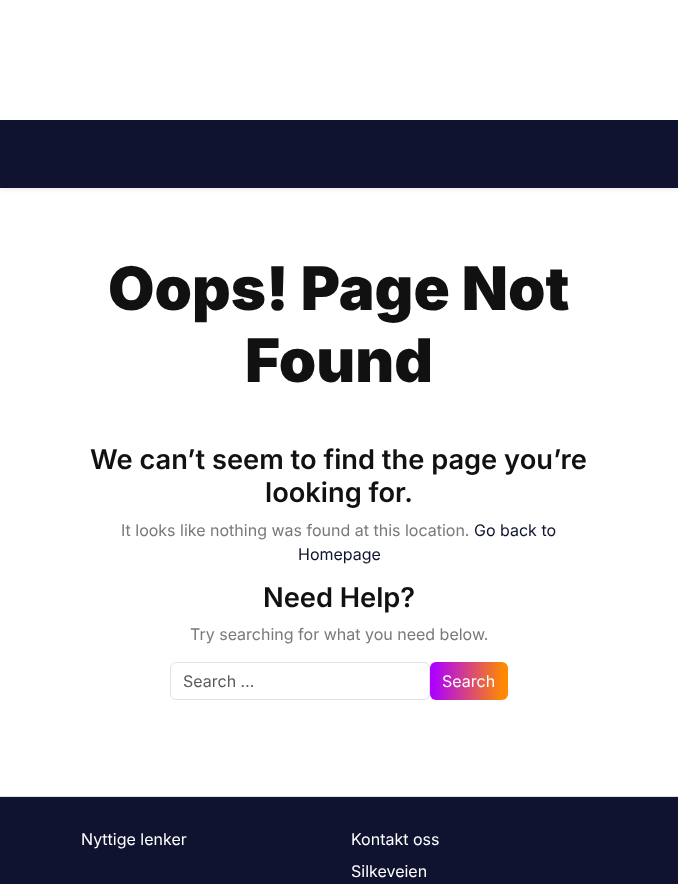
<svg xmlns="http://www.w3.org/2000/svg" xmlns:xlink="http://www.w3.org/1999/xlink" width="678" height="884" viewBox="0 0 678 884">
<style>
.cls-1{font:900 60px Inter;fill:#111111}
.cls-2{font:600 27.25px Inter;fill:#111111}
.cls-3{font:16px Inter;fill:#797979}
.cls-4{font:16px Inter;fill:#0f1330}
.cls-5{font:16px Inter;fill:#595c5f}
.cls-6{font:16px Inter;fill:#ffffff}
</style>
<defs>
<linearGradient id="g1" gradientUnits="userSpaceOnUse" x1="429" y1="679" x2="509" y2="683"><stop offset="0.05" stop-color="#ad00ff"/><stop offset="0.93" stop-color="#ff8a00"/></linearGradient>
</defs>
<rect width="100%" height="100%" fill="#ffffff"/>
<rect fill="#000000" fill-opacity="0.07" filter="blur(2px)" x="0" y="122" width="678" height="68"/>
<rect fill="#0f1330" x="0" y="120" width="678" height="68"/>
<rect fill="none" stroke="#dee2e6" x="170.5" y="662.5" width="259" height="37" rx="5.5"/>
<rect fill="url(#g1)" x="430" y="662" width="78" height="38" rx="6"/>
<rect fill="#0f1330" x="0" y="797" width="678" height="87"/>
<rect fill="#dee2e6" x="0" y="796" width="678" height="1"/>
<text class="cls-1" x="108" y="310">Oops! Page Not</text>
<text class="cls-1" x="245" y="382">Found</text>
<text class="cls-2" x="90" y="469">We can’t seem to find the page you’re</text>
<text class="cls-2" x="265" y="502">looking for.</text>
<text class="cls-3" x="121" y="536">It looks like nothing was found at this location.</text>
<text class="cls-4" x="474" y="536">Go back to</text>
<text class="cls-4" x="298" y="560">Homepage</text>
<text class="cls-2" x="263" y="607">Need Help?</text>
<text class="cls-3" x="190" y="640">Try searching for what you need below.</text>
<text class="cls-5" x="183" y="687">Search …</text>
<text class="cls-6" x="442" y="687">Search</text>
<text class="cls-6" x="81" y="845">Nyttige lenker</text>
<text class="cls-6" x="351" y="845">Kontakt oss</text>
<text class="cls-6" x="351" y="877">Silkeveien</text>
</svg>
